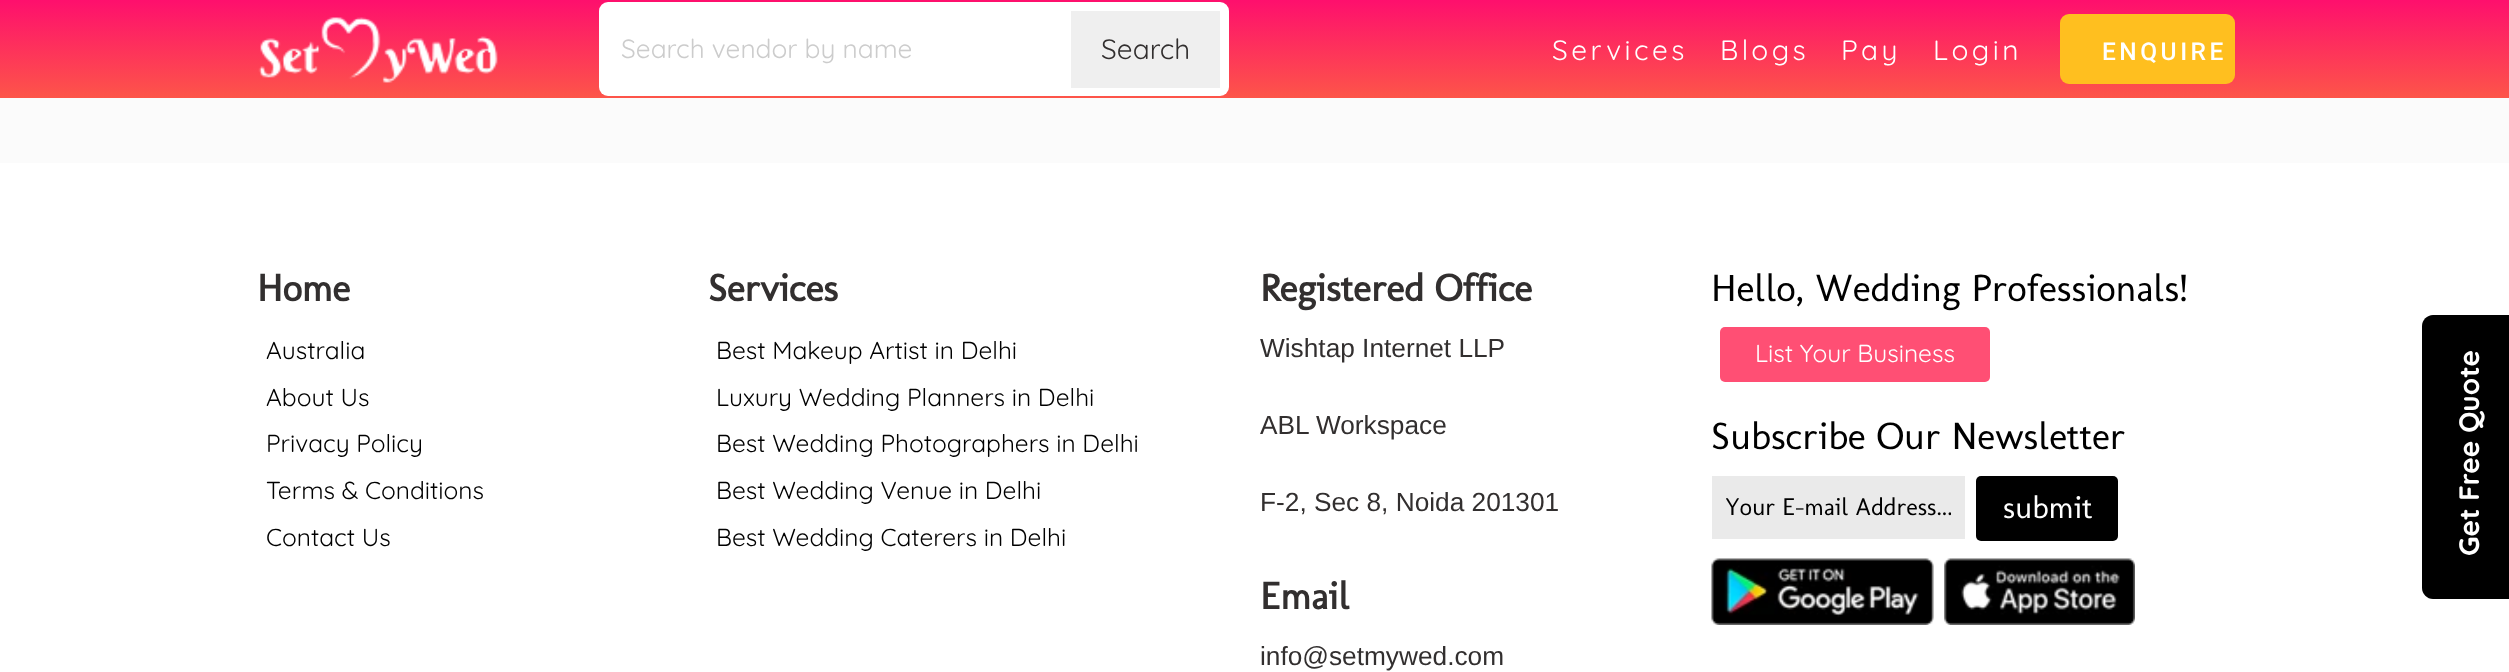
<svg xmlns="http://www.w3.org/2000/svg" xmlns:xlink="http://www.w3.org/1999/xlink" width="2509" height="672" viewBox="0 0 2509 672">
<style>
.cls-1{font:26.25px Quicksand;fill:#cccccc}
.cls-2{font:28px Quicksand;fill:#322f2f}
.cls-3{font:28px Quicksand;letter-spacing:3.5px;fill:#ffffff}
.cls-4{font:500 24.5px Roboto;letter-spacing:3.5px;fill:#ffffff}
.cls-5{font:bold 38.5px Molengo;fill:#322f2f}
.cls-6{font:24.5px Quicksand;fill:#000000}
.cls-7{font:26.25px Liberation Sans;fill:#322f2f}
.cls-8{font:38.5px Molengo;fill:#000000}
.cls-9{font:24.5px Quicksand;fill:#ffffff}
.cls-10{font:24.5px Molengo;fill:#000000}
.cls-11{font:31.5px Molengo;fill:#ffffff}
.cls-12{font:bold 28px Quicksand;fill:#ffffff}
</style>
<defs>
<linearGradient id="g1" gradientUnits="userSpaceOnUse" x1="1255" y1="0" x2="1255" y2="98"><stop offset="0" stop-color="#fe0f6d"/><stop offset="1" stop-color="#fd5549"/></linearGradient>
<clipPath id="clip1"><rect x="1726" y="492" width="225" height="30"/></clipPath>
</defs>
<rect width="100%" height="100%" fill="#ffffff"/>
<rect fill="url(#g1)" x="0" y="0" width="2509" height="98"/>
<image xlink:href="image0.png" x="258" y="17" width="240" height="66"/>
<rect fill="#ffffff" x="599" y="2" width="630" height="94" rx="9"/>
<rect fill="#efefef" x="1071" y="11" width="149" height="77"/>
<rect fill="#ffbf1f" x="2060" y="14" width="175" height="70" rx="9"/>
<rect fill="#fbfbfb" x="0" y="98" width="2509" height="65"/>
<rect fill="#ff4f74" x="1720" y="327" width="270" height="55" rx="5"/>
<rect fill="#eaeaea" x="1712" y="476" width="253" height="63"/>
<rect fill="#000000" x="1976" y="476" width="142" height="65" rx="5"/>
<image xlink:href="image1.png" x="1711" y="558" width="223" height="67"/>
<image xlink:href="image2.png" x="1944" y="558" width="191" height="67"/>
<path fill="#000000" d="M2433 315H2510V599H2433C2427 599 2422 594 2422 588V326C2422 320 2427 315 2433 315Z"/>
<text class="cls-1" x="621" y="58">Search vendor by name</text>
<text class="cls-2" x="1101" y="59">Search</text>
<text class="cls-3" x="1552" y="60">Services</text>
<text class="cls-3" x="1720" y="60">Blogs</text>
<text class="cls-3" x="1841" y="60">Pay</text>
<text class="cls-3" x="1933" y="60">Login</text>
<text class="cls-4" x="2102" y="60">ENQUIRE</text>
<text class="cls-5" x="257" y="301">Home</text>
<text class="cls-6"><tspan x="266" y="359">Australia</tspan><tspan x="266" y="406">About Us</tspan><tspan x="266" y="452">Privacy Policy</tspan><tspan x="266" y="499">Terms &amp; Conditions</tspan><tspan x="266" y="546">Contact Us</tspan></text>
<text class="cls-5" x="708" y="301">Services</text>
<text class="cls-6"><tspan x="716" y="359">Best Makeup Artist in Delhi</tspan><tspan x="716" y="406">Luxury Wedding Planners in Delhi</tspan><tspan x="716" y="452">Best Wedding Photographers in Delhi</tspan><tspan x="716" y="499">Best Wedding Venue in Delhi</tspan><tspan x="716" y="546">Best Wedding Caterers in Delhi</tspan></text>
<text class="cls-5" x="1260" y="301">Registered Office</text>
<text class="cls-7" x="1260" y="357">Wishtap Internet LLP</text>
<text class="cls-7" x="1260" y="434">ABL Workspace</text>
<text class="cls-7" x="1260" y="511">F-2, Sec 8, Noida 201301</text>
<text class="cls-5" x="1260" y="609">Email</text>
<text class="cls-7" x="1260" y="665">info@setmywed.com</text>
<text class="cls-8" x="1711" y="301">Hello, Wedding Professionals!</text>
<text class="cls-9" x="1755" y="362">List Your Business</text>
<text class="cls-8" x="1711" y="449">Subscribe Our Newsletter</text>
<g clip-path="url(#clip1)">
<text class="cls-10" x="1725" y="515">Your E-mail Address...</text>
</g>
<text class="cls-11" x="2003" y="518">submit</text>
<text class="cls-12" x="2479" y="556" transform="rotate(-90 2479 556)">Get Free Quote</text>
</svg>
